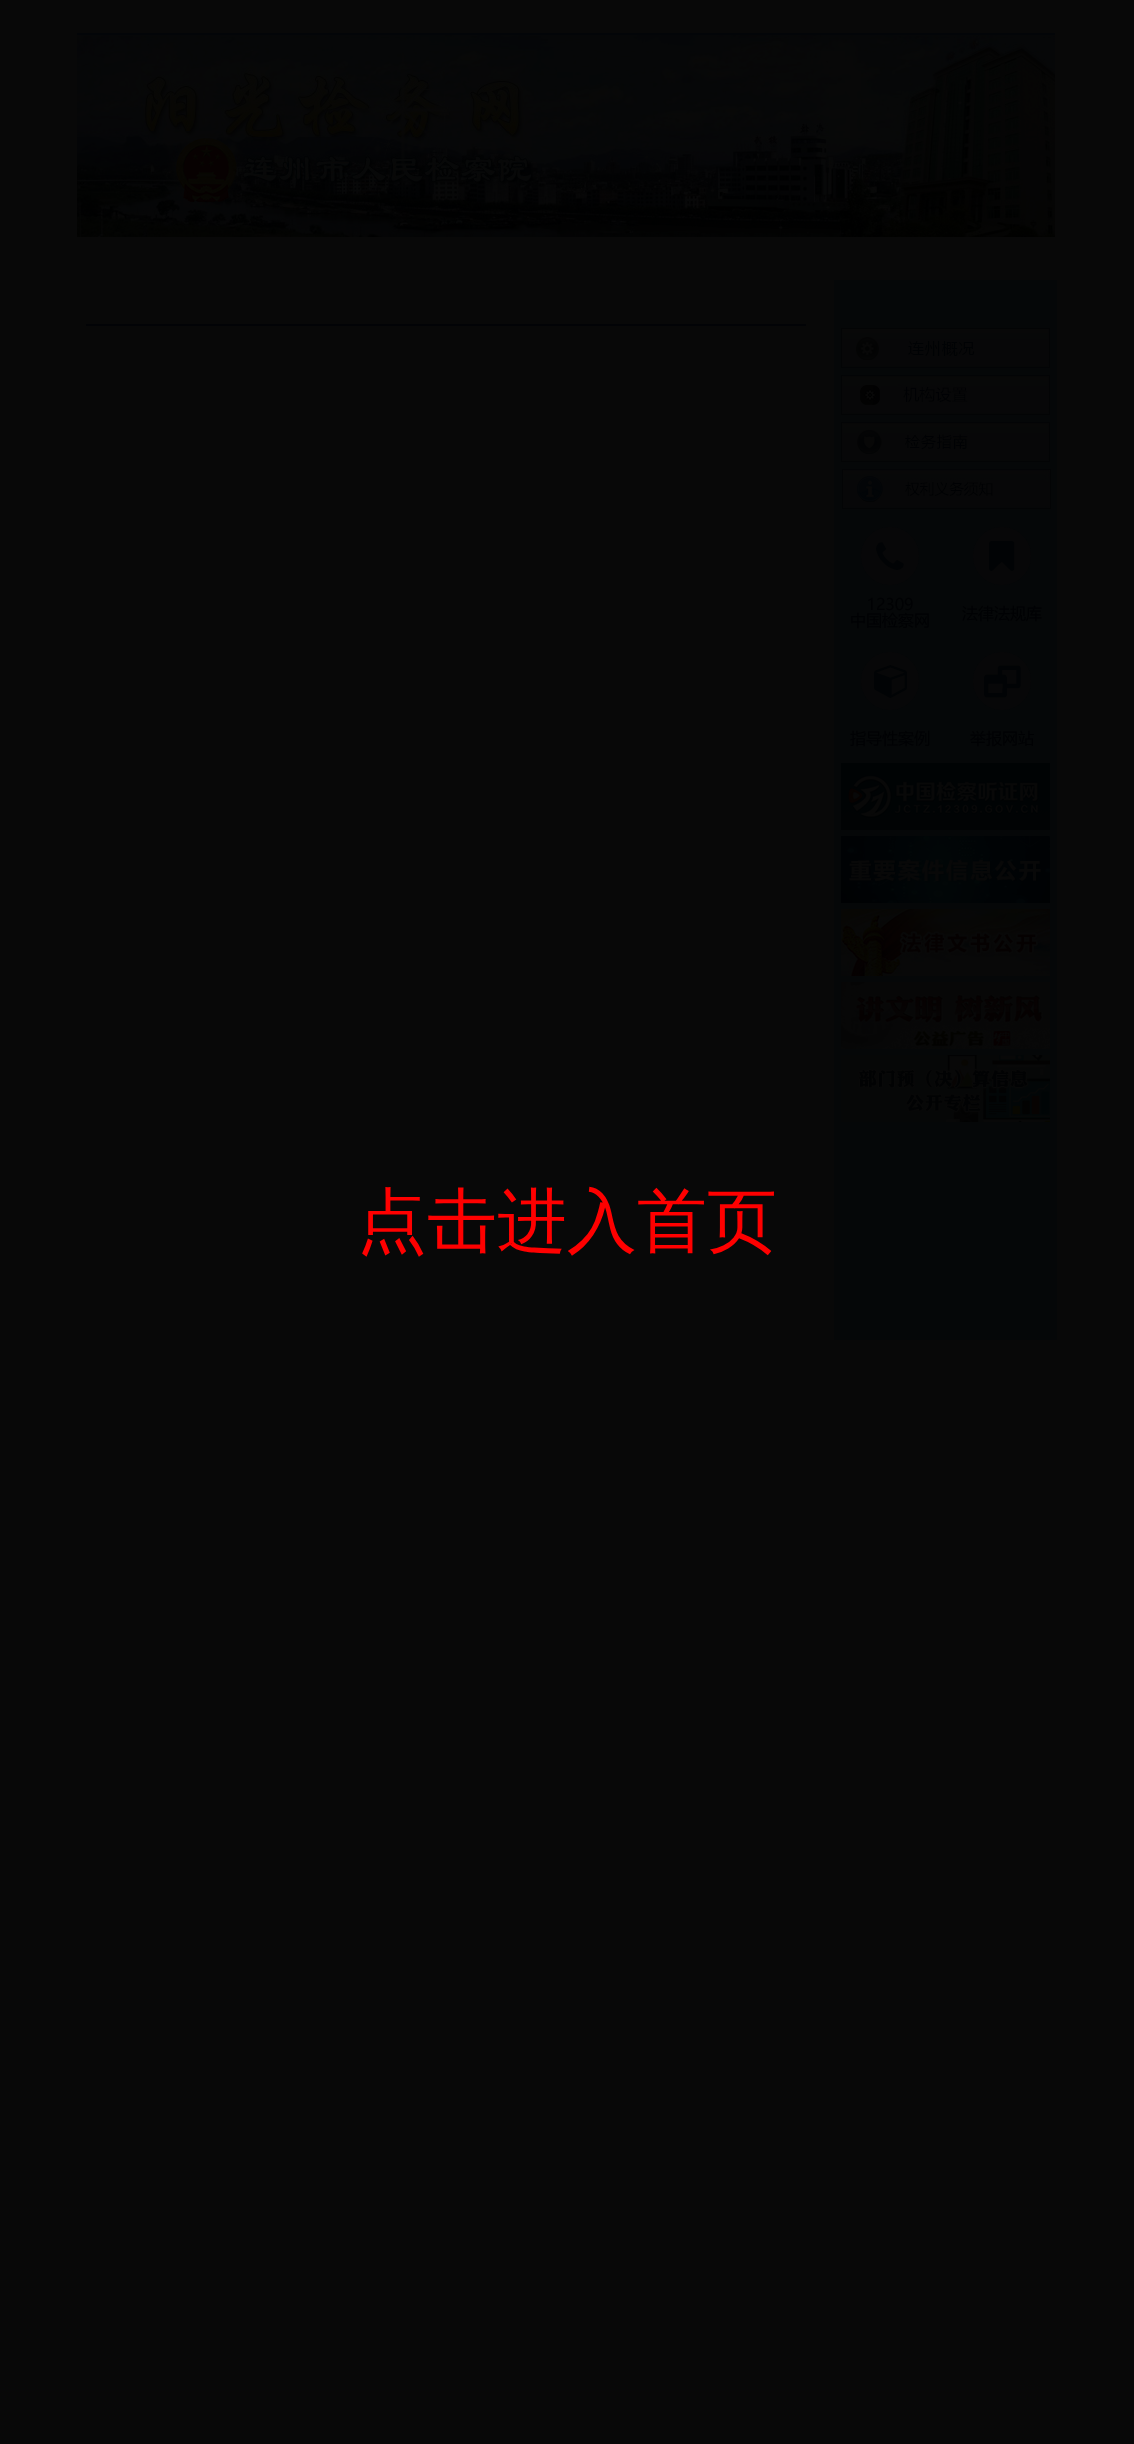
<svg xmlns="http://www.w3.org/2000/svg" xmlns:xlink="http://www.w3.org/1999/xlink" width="1134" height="2444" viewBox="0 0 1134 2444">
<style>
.cls-1{font:500 70px WenQuanYi Zen Hei;fill:#ff0000}
</style>
<rect width="100%" height="100%" fill="#080808"/>
<image xlink:href="image0.png" x="77" y="33" width="978" height="204"/>
<rect fill="#020306" x="86" y="324" width="720" height="2"/>
<rect fill="#050708" x="834" y="280" width="223" height="1060"/>
<image xlink:href="image1.png" x="841" y="328" width="209" height="40"/>
<image xlink:href="image2.png" x="841" y="375" width="209" height="40"/>
<image xlink:href="image3.png" x="841" y="422" width="209" height="40"/>
<image xlink:href="image4.png" x="842" y="469" width="209" height="40"/>
<image xlink:href="image5.png" x="851" y="527" width="78" height="102"/>
<image xlink:href="image6.png" x="962" y="527" width="80" height="95"/>
<image xlink:href="image7.png" x="850" y="652" width="80" height="95"/>
<image xlink:href="image8.png" x="970" y="652" width="64" height="95"/>
<image xlink:href="image9.png" x="841" y="763" width="209" height="67"/>
<image xlink:href="image10.png" x="841" y="836" width="209" height="67"/>
<image xlink:href="image11.png" x="841" y="909" width="209" height="67"/>
<image xlink:href="image12.png" x="841" y="982" width="209" height="67"/>
<image xlink:href="image13.png" x="841" y="1055" width="209" height="67"/>
<text class="cls-1" x="357" y="1245">点击进入首页</text>
</svg>
